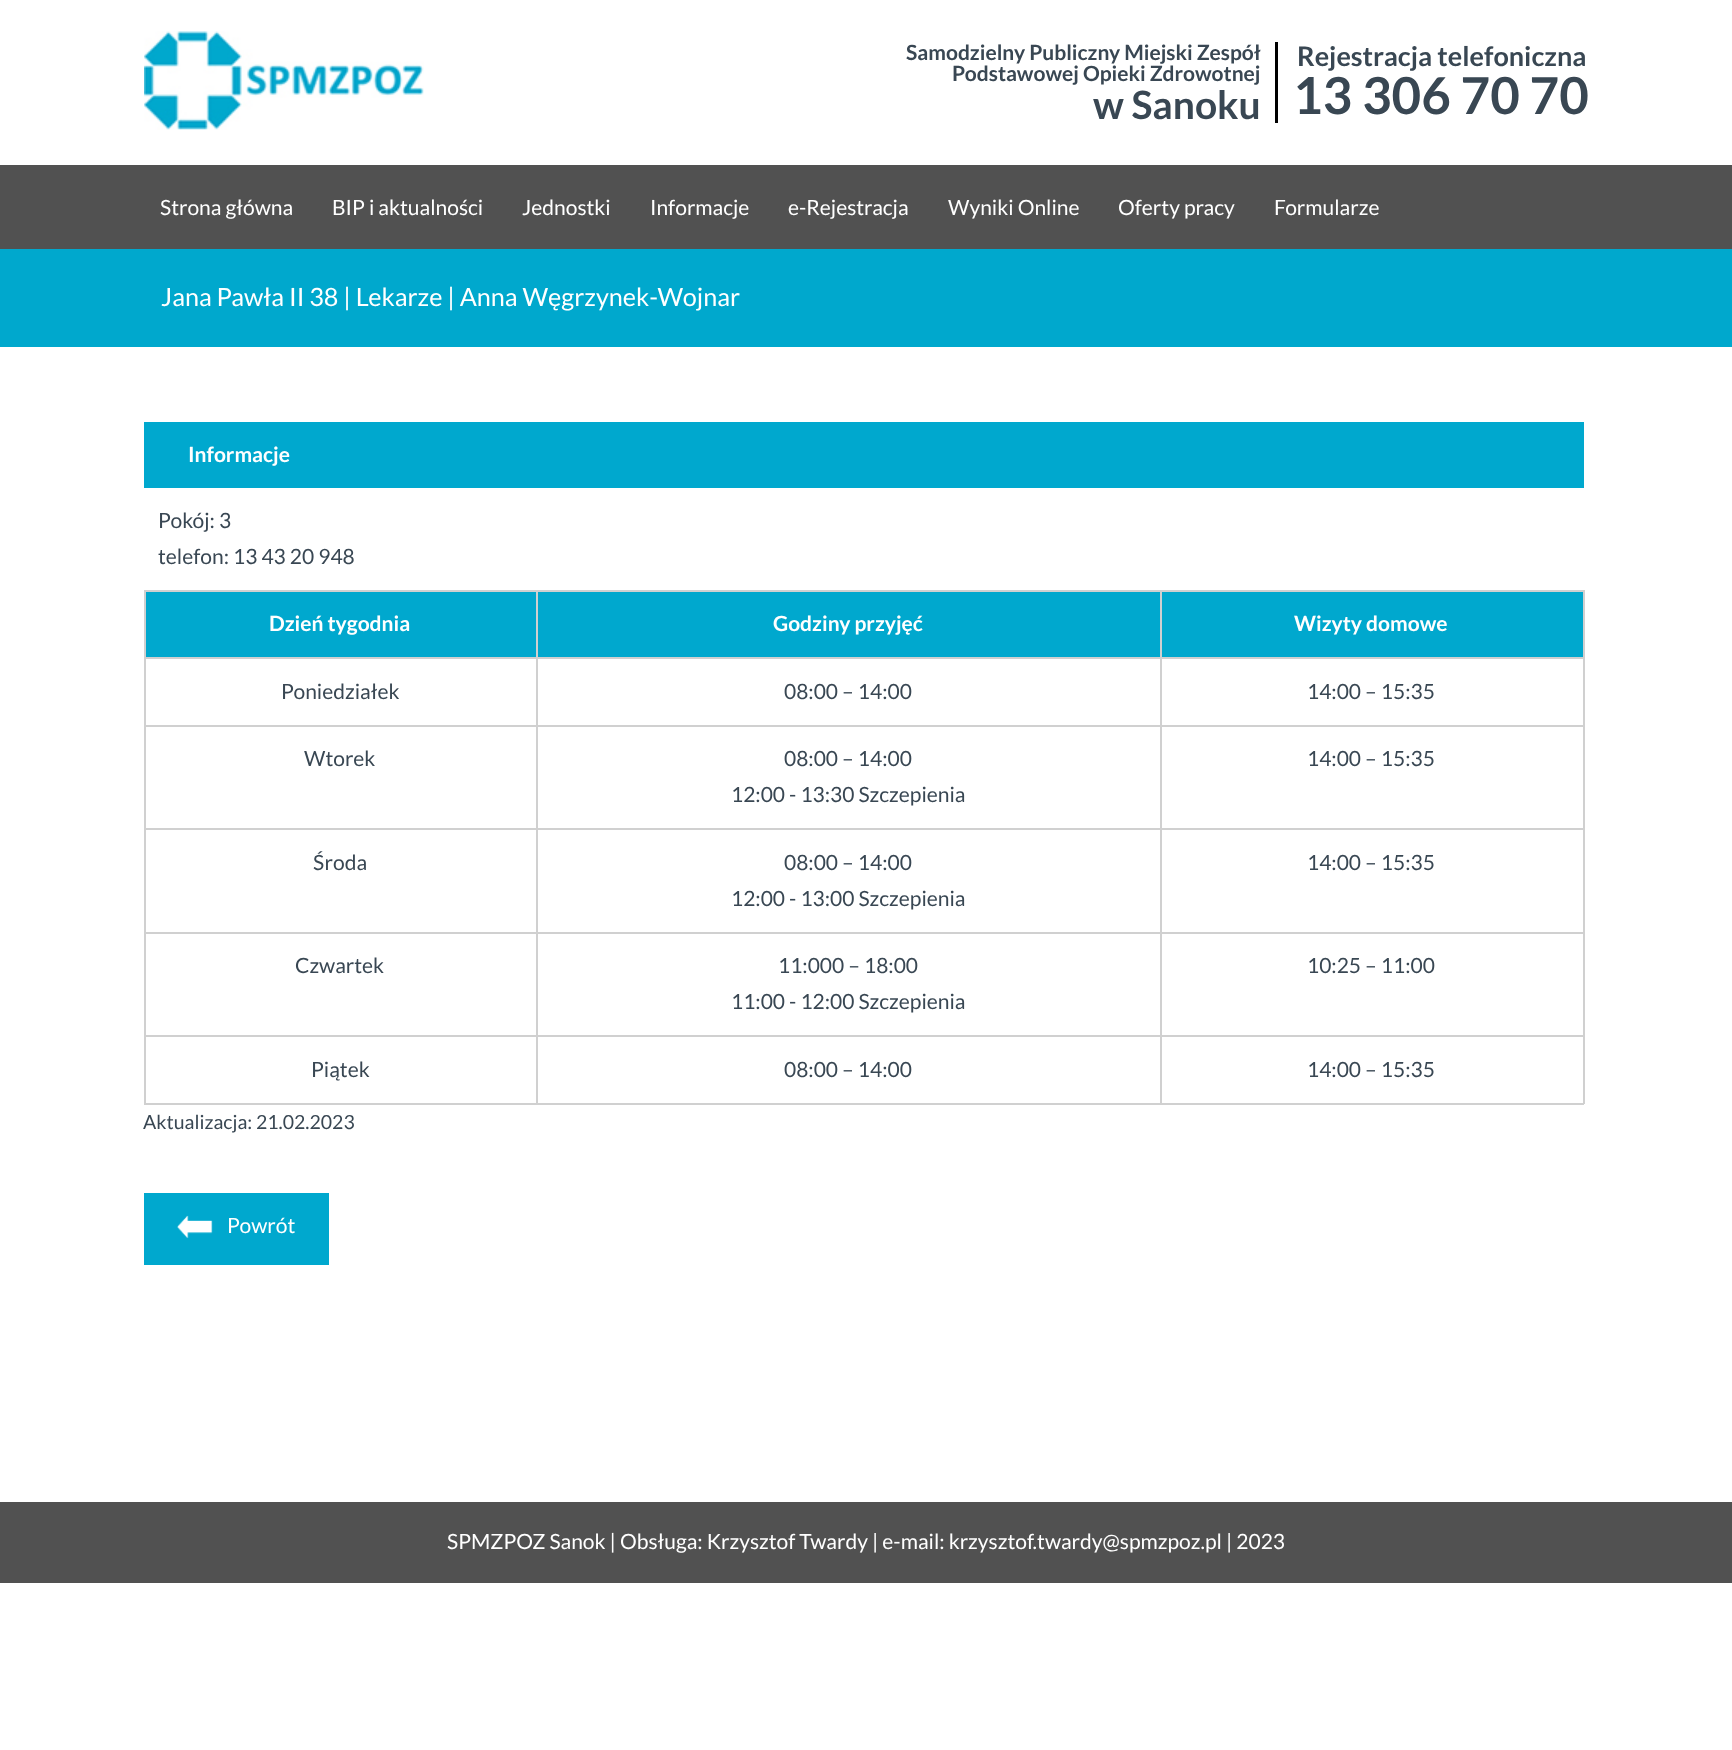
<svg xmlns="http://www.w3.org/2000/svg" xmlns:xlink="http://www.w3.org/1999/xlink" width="1732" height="1750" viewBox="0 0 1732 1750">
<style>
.cls-1{font:bold 21px Lato;fill:#394753}
.cls-2{font:bold 39px Lato;fill:#394753}
.cls-3{font:bold 27px Lato;fill:#394753}
.cls-4{font:bold 51px Lato;fill:#394753}
.cls-5{font:21px Lato;fill:#ffffff}
.cls-6{font:25.2px Lato;fill:#ffffff}
.cls-7{font:bold 21px Lato;fill:#ffffff}
.cls-8{font:21px Lato;fill:#394753}
.cls-9{font:19.5px Lato;fill:#394753}
</style>
<rect width="100%" height="100%" fill="#ffffff"/>
<rect fill="#515151" x="0" y="165" width="1732" height="84"/>
<image xlink:href="image0.png" x="144" y="31" width="280" height="99"/>
<rect fill="#000000" x="1275" y="42" width="3" height="81"/>
<rect fill="#00a8cd" x="0" y="249" width="1732" height="98"/>
<rect fill="#00a8ce" x="144" y="422" width="1440" height="66"/>
<rect fill="#00a8ce" x="146" y="592" width="1437" height="65"/>
<rect fill="#d0d0d0" x="1160" y="590" width="424" height="2"/>
<rect fill="#d0d0d0" x="1160" y="657" width="424" height="2"/>
<rect fill="#d0d0d0" x="1160" y="725" width="424" height="2"/>
<rect fill="#d0d0d0" x="1160" y="828" width="424" height="2"/>
<rect fill="#d0d0d0" x="1160" y="932" width="424" height="2"/>
<rect fill="#d0d0d0" x="1160" y="1035" width="424" height="2"/>
<rect fill="#d0d0d0" x="1583" y="1035" width="2" height="69"/>
<rect fill="#d0d0d0" x="1160" y="1103" width="424" height="2"/>
<rect fill="#d0d0d0" x="1160" y="1035" width="2" height="69"/>
<rect fill="#d0d0d0" x="536" y="1035" width="625" height="2"/>
<rect fill="#d0d0d0" x="1160" y="932" width="2" height="105"/>
<rect fill="#d0d0d0" x="536" y="932" width="625" height="2"/>
<rect fill="#d0d0d0" x="1160" y="828" width="2" height="105"/>
<rect fill="#d0d0d0" x="536" y="828" width="625" height="2"/>
<rect fill="#d0d0d0" x="1160" y="725" width="2" height="105"/>
<rect fill="#d0d0d0" x="536" y="725" width="625" height="2"/>
<rect fill="#d0d0d0" x="1160" y="657" width="2" height="69"/>
<rect fill="#d0d0d0" x="536" y="657" width="625" height="2"/>
<rect fill="#d0d0d0" x="1160" y="590" width="2" height="69"/>
<rect fill="#d0d0d0" x="536" y="590" width="625" height="2"/>
<rect fill="#d0d0d0" x="536" y="1103" width="625" height="2"/>
<rect fill="#d0d0d0" x="536" y="1035" width="2" height="69"/>
<rect fill="#d0d0d0" x="144" y="1035" width="393" height="2"/>
<rect fill="#d0d0d0" x="536" y="932" width="2" height="105"/>
<rect fill="#d0d0d0" x="144" y="932" width="393" height="2"/>
<rect fill="#d0d0d0" x="536" y="828" width="2" height="105"/>
<rect fill="#d0d0d0" x="144" y="828" width="393" height="2"/>
<rect fill="#d0d0d0" x="536" y="725" width="2" height="105"/>
<rect fill="#d0d0d0" x="144" y="725" width="393" height="2"/>
<rect fill="#d0d0d0" x="536" y="657" width="2" height="69"/>
<rect fill="#d0d0d0" x="144" y="657" width="393" height="2"/>
<rect fill="#d0d0d0" x="536" y="590" width="2" height="69"/>
<rect fill="#d0d0d0" x="144" y="590" width="393" height="2"/>
<rect fill="#d0d0d0" x="144" y="1103" width="393" height="2"/>
<rect fill="#d0d0d0" x="144" y="1035" width="2" height="69"/>
<rect fill="#d0d0d0" x="144" y="932" width="2" height="105"/>
<rect fill="#d0d0d0" x="144" y="828" width="2" height="105"/>
<rect fill="#d0d0d0" x="144" y="725" width="2" height="105"/>
<rect fill="#d0d0d0" x="144" y="657" width="2" height="69"/>
<rect fill="#d0d0d0" x="144" y="590" width="2" height="69"/>
<rect fill="#d0d0d0" x="1583" y="932" width="2" height="105"/>
<rect fill="#d0d0d0" x="1583" y="828" width="2" height="105"/>
<rect fill="#d0d0d0" x="1583" y="725" width="2" height="105"/>
<rect fill="#d0d0d0" x="1583" y="657" width="2" height="69"/>
<rect fill="#d0d0d0" x="1583" y="590" width="2" height="69"/>
<rect fill="#00a8ce" x="144" y="1193" width="185" height="72"/>
<image xlink:href="image1.png" x="177" y="1215" width="36" height="24"/>
<rect fill="#515151" x="0" y="1502" width="1732" height="81"/>
<text class="cls-1" x="906" y="60">Samodzielny Publiczny Miejski Zespół</text>
<text class="cls-1" x="952" y="81">Podstawowej Opieki Zdrowotnej</text>
<text class="cls-2" x="1093" y="119">w Sanoku</text>
<text class="cls-3" x="1297" y="66">Rejestracja telefoniczna</text>
<text class="cls-4" x="1293" y="114">13 306 70 70</text>
<text class="cls-5" x="160" y="215">Strona główna</text>
<text class="cls-5" x="332" y="215">BIP i aktualności</text>
<text class="cls-5" x="522" y="215">Jednostki</text>
<text class="cls-5" x="650" y="215">Informacje</text>
<text class="cls-5" x="788" y="215">e-Rejestracja</text>
<text class="cls-5" x="948" y="215">Wyniki Online</text>
<text class="cls-5" x="1118" y="215">Oferty pracy</text>
<text class="cls-5" x="1274" y="215">Formularze</text>
<text class="cls-6" x="161" y="306">Jana Pawła II 38 | Lekarze | Anna Węgrzynek-Wojnar</text>
<text class="cls-7" x="188" y="462">Informacje</text>
<text class="cls-8"><tspan x="158" y="528">Pokój: 3</tspan><tspan x="158" y="564">telefon: 13 43 20 948</tspan></text>
<text class="cls-7" x="269" y="631">Dzień tygodnia</text>
<text class="cls-7" x="773" y="631">Godziny przyjęć</text>
<text class="cls-7" x="1294" y="631">Wizyty domowe</text>
<text class="cls-8" x="281" y="699">Poniedziałek</text>
<text class="cls-8" x="784" y="699">08:00 – 14:00</text>
<text class="cls-8" x="1307" y="699">14:00 – 15:35</text>
<text class="cls-8" x="304" y="766">Wtorek</text>
<text class="cls-8" x="784" y="766">08:00 – 14:00</text>
<text class="cls-8" x="731" y="802">12:00 - 13:30 Szczepienia</text>
<text class="cls-8" x="1307" y="766">14:00 – 15:35</text>
<text class="cls-8" x="313" y="870">Środa</text>
<text class="cls-8" x="784" y="870">08:00 – 14:00</text>
<text class="cls-8" x="731" y="906">12:00 - 13:00 Szczepienia</text>
<text class="cls-8" x="1307" y="870">14:00 – 15:35</text>
<text class="cls-8" x="295" y="973">Czwartek</text>
<text class="cls-8" x="778" y="973">11:000 – 18:00</text>
<text class="cls-8" x="731" y="1009">11:00 - 12:00 Szczepienia</text>
<text class="cls-8" x="1307" y="973">10:25 – 11:00</text>
<text class="cls-8" x="311" y="1077">Piątek</text>
<text class="cls-8" x="784" y="1077">08:00 – 14:00</text>
<text class="cls-8" x="1307" y="1077">14:00 – 15:35</text>
<text class="cls-9" x="143" y="1129">Aktualizacja: 21.02.2023</text>
<text class="cls-5" x="227" y="1233">Powrót</text>
<text class="cls-5" x="447" y="1549">SPMZPOZ Sanok | Obsługa: Krzysztof Twardy | e-mail: krzysztof.twardy@spmzpoz.pl | 2023</text>
</svg>
